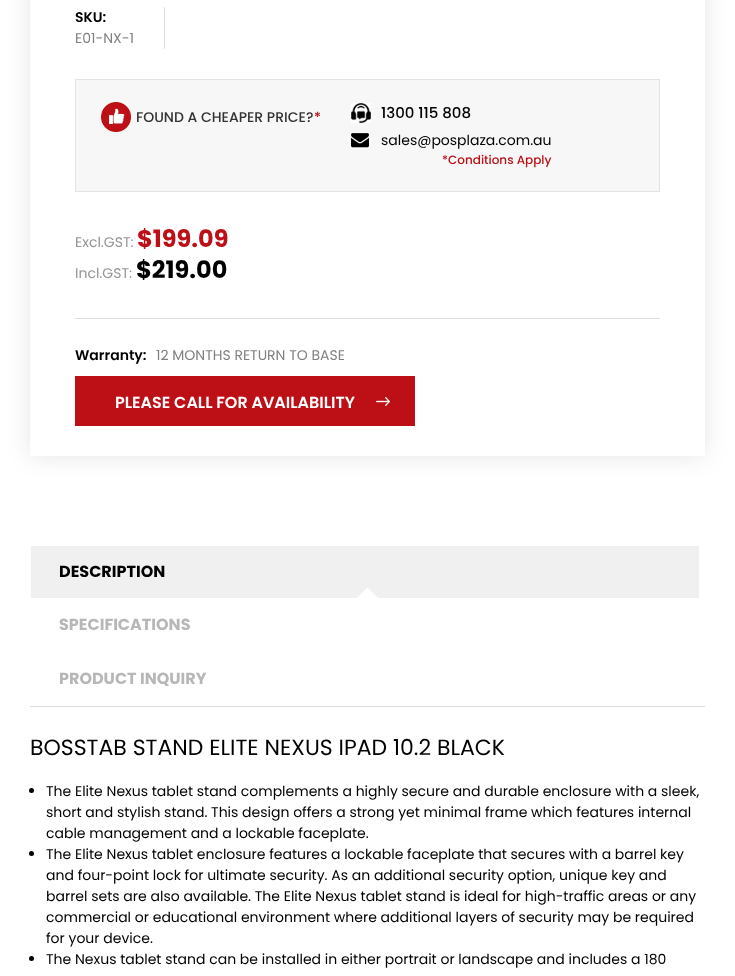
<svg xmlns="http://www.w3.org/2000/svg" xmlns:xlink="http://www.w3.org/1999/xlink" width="735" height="976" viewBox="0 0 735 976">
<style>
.cls-1{font:600 14px Poppins;fill:#000000}
.cls-2{font:14px Poppins;fill:#808080}
.cls-3{font:500 14px Poppins;fill:#333333}
.cls-4{font:500 14px Poppins;fill:#bc1016}
.cls-5{font:500 15px Poppins;fill:#000000}
.cls-6{font:14px Poppins;fill:#000000}
.cls-7{font:500 12px Poppins;fill:#bc1016}
.cls-8{font:14px Poppins;fill:#959595}
.cls-9{font:bold 24px Poppins;fill:#bc1016}
.cls-10{font:bold 24px Poppins;fill:#000000}
.cls-11{font:600 16px Poppins;fill:#ffffff}
.cls-12{font:bold 16px Poppins;fill:#000000}
.cls-13{font:bold 16px Poppins;fill:#b7b7b7}
.cls-14{font:22px Poppins;fill:#000000}
</style>
<defs>
<clipPath id="clip1"><path d="M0 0H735V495H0ZM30-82H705V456H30Z" clip-rule="evenodd"/></clipPath>
</defs>
<rect width="100%" height="100%" fill="#ffffff"/>
<g clip-path="url(#clip1)">
<rect fill="#000000" fill-opacity="0.1" filter="blur(12.5px)" x="30" y="-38" width="675" height="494"/>
</g>
<rect fill="#e0e0e0" x="164" y="7" width="1" height="42"/>
<rect fill="#f8f7f7" stroke="#e3e3e3" x="75.5" y="79.5" width="584" height="112"/>
<image xlink:href="image0.png" x="101" y="102" width="30" height="30"/>
<image xlink:href="image1.png" x="351" y="103" width="20" height="20"/>
<image xlink:href="image2.png" x="351" y="133" width="18" height="15"/>
<rect fill="#dcdcdc" x="75" y="318" width="585" height="1"/>
<rect fill="#bc1016" x="75" y="376" width="340" height="50"/>
<image xlink:href="image3.png" x="376" y="397" width="14" height="9"/>
<rect fill="#dcdcdc" x="30" y="706" width="675" height="1"/>
<rect fill="#f0f0f0" x="31" y="546" width="668" height="52"/>
<path fill="#ffffff" d="M367.5 587.5L380 600L367.5 613L355 600Z"/>
<circle fill="#000000" cx="31.5" cy="790.5" r="2.5"/>
<circle fill="#000000" cx="31.5" cy="853.5" r="2.5"/>
<circle fill="#000000" cx="31.5" cy="958.5" r="2.5"/>
<text class="cls-1" x="75" y="22">SKU:</text>
<text class="cls-2" x="75" y="43">E01-NX-1</text>
<text class="cls-3" x="136" y="122">FOUND A CHEAPER PRICE?</text>
<text class="cls-4" x="314" y="122">*</text>
<text class="cls-5" x="381" y="118">1300 115 808</text>
<text class="cls-6" x="381" y="145">sales@posplaza.com.au</text>
<text class="cls-7" x="442" y="164">*Conditions Apply</text>
<text class="cls-8" x="75" y="247">Excl.GST:</text>
<text class="cls-9" x="137" y="247">$199.09</text>
<text class="cls-8" x="75" y="278">Incl.GST:</text>
<text class="cls-10" x="136" y="278">$219.00</text>
<text class="cls-1" x="75" y="360">Warranty:</text>
<text class="cls-2" x="156" y="360">12 MONTHS RETURN TO BASE</text>
<text class="cls-11" x="115" y="408">PLEASE CALL FOR AVAILABILITY</text>
<text class="cls-12" x="59" y="577">DESCRIPTION</text>
<text class="cls-13" x="59" y="630">SPECIFICATIONS</text>
<text class="cls-13" x="59" y="684">PRODUCT INQUIRY</text>
<text class="cls-14" x="30" y="755">BOSSTAB STAND ELITE NEXUS IPAD 10.2 BLACK</text>
<text class="cls-6"><tspan x="46" y="796">The Elite Nexus tablet stand complements a highly secure and durable enclosure with a sleek,</tspan><tspan x="46" y="817">short and stylish stand. This design offers a strong yet minimal frame which features internal</tspan><tspan x="46" y="838">cable management and a lockable faceplate.</tspan><tspan x="46" y="859">The Elite Nexus tablet enclosure features a lockable faceplate that secures with a barrel key</tspan><tspan x="46" y="880">and four-point lock for ultimate security. As an additional security option, unique key and</tspan><tspan x="46" y="901">barrel sets are also available. The Elite Nexus tablet stand is ideal for high-traffic areas or any</tspan><tspan x="46" y="922">commercial or educational environment where additional layers of security may be required</tspan><tspan x="46" y="943">for your device.</tspan><tspan x="46" y="964">The Nexus tablet stand can be installed in either portrait or landscape and includes a 180</tspan></text>
</svg>
